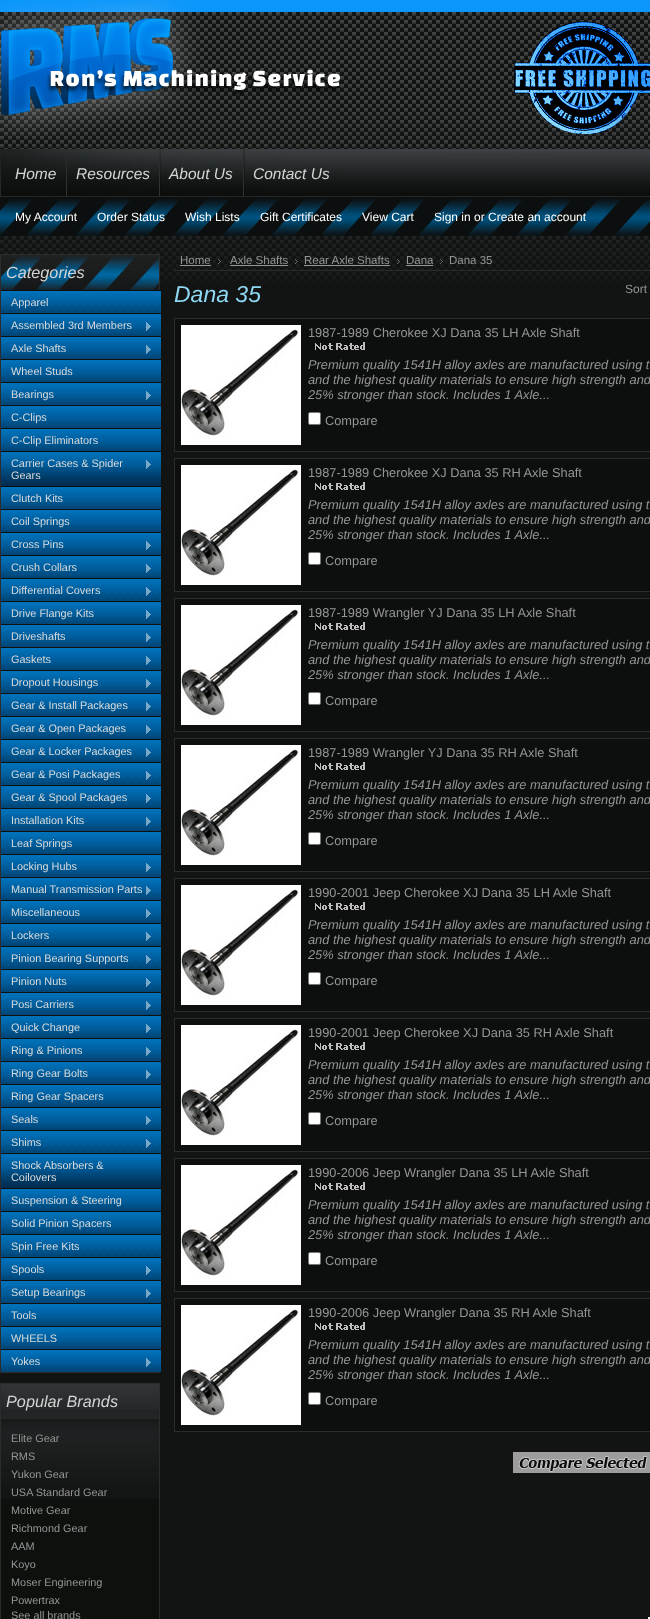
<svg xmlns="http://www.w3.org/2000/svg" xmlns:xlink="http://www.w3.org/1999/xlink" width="650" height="1619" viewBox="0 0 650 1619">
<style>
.cls-1{font:italic 15.5px Liberation Sans;fill:#d4d4d4}
.cls-2{font:12px Liberation Sans;fill:#ffffff}
.cls-3{font:italic 16.25px Liberation Sans;fill:#d4d4d4}
.cls-4{font:10.9px Liberation Sans;fill:#dadada}
.cls-5{font:10.9px Liberation Sans;fill:#959595}
.cls-6{font:11.5px Liberation Sans;fill:#959595}
.cls-7{font:italic 23px Liberation Sans;fill:#8fd7f4}
.cls-8{font:12px Liberation Sans;fill:#959595}
.cls-9{font:12.8px Liberation Sans;fill:#959595}
.cls-10{font:italic 12.8px Liberation Sans;fill:#959595}
</style>
<rect width="100%" height="100%" fill="#111413"/>
<image xlink:href="image0.png" x="0" y="0" width="650" height="281"/>
<image xlink:href="image1.png" x="0" y="0" width="341" height="137"/>
<image xlink:href="image2.png" x="513" y="21" width="137" height="114"/>
<image xlink:href="image3.png" x="0" y="149" width="650" height="48"/>
<image xlink:href="image4.png" x="66" y="156" width="1" height="40"/>
<image xlink:href="image5.png" x="159" y="149" width="2" height="47"/>
<image xlink:href="image5.png" x="243" y="149" width="2" height="47"/>
<rect fill="#0c0f0f" x="0" y="197" width="650" height="1"/>
<image xlink:href="image6.png" x="0" y="198" width="650" height="38"/>
<rect fill="none" stroke="#2c2c2c" x="0.5" y="254.5" width="159" height="1118"/>
<image xlink:href="image7.png" x="1" y="255" width="158" height="35"/>
<image xlink:href="image8.png" x="1" y="291" width="160" height="22"/>
<rect fill="#0d110e" x="1" y="290" width="160" height="1"/>
<image xlink:href="image8.png" x="1" y="314" width="160" height="22"/>
<rect fill="#0d110e" x="1" y="313" width="160" height="1"/>
<image xlink:href="image9.png" x="146" y="322" width="5" height="9"/>
<image xlink:href="image8.png" x="1" y="337" width="160" height="22"/>
<rect fill="#0d110e" x="1" y="336" width="160" height="1"/>
<image xlink:href="image9.png" x="146" y="345" width="5" height="9"/>
<image xlink:href="image8.png" x="1" y="360" width="160" height="22"/>
<rect fill="#0d110e" x="1" y="359" width="160" height="1"/>
<image xlink:href="image8.png" x="1" y="383" width="160" height="22"/>
<rect fill="#0d110e" x="1" y="382" width="160" height="1"/>
<image xlink:href="image9.png" x="146" y="391" width="5" height="9"/>
<image xlink:href="image8.png" x="1" y="406" width="160" height="22"/>
<rect fill="#0d110e" x="1" y="405" width="160" height="1"/>
<image xlink:href="image8.png" x="1" y="429" width="160" height="22"/>
<rect fill="#0d110e" x="1" y="428" width="160" height="1"/>
<rect fill="#002d51" x="1" y="484" width="160" height="2"/>
<image xlink:href="image10.png" x="1" y="452" width="160" height="32"/>
<rect fill="#0d110e" x="1" y="451" width="160" height="1"/>
<image xlink:href="image9.png" x="146" y="460" width="5" height="9"/>
<image xlink:href="image8.png" x="1" y="487" width="160" height="22"/>
<rect fill="#0d110e" x="1" y="486" width="160" height="1"/>
<image xlink:href="image8.png" x="1" y="510" width="160" height="22"/>
<rect fill="#0d110e" x="1" y="509" width="160" height="1"/>
<image xlink:href="image8.png" x="1" y="533" width="160" height="22"/>
<rect fill="#0d110e" x="1" y="532" width="160" height="1"/>
<image xlink:href="image9.png" x="146" y="541" width="5" height="9"/>
<image xlink:href="image8.png" x="1" y="556" width="160" height="22"/>
<rect fill="#0d110e" x="1" y="555" width="160" height="1"/>
<image xlink:href="image9.png" x="146" y="564" width="5" height="9"/>
<image xlink:href="image8.png" x="1" y="579" width="160" height="22"/>
<rect fill="#0d110e" x="1" y="578" width="160" height="1"/>
<image xlink:href="image9.png" x="146" y="587" width="5" height="9"/>
<image xlink:href="image8.png" x="1" y="602" width="160" height="22"/>
<rect fill="#0d110e" x="1" y="601" width="160" height="1"/>
<image xlink:href="image9.png" x="146" y="610" width="5" height="9"/>
<image xlink:href="image8.png" x="1" y="625" width="160" height="22"/>
<rect fill="#0d110e" x="1" y="624" width="160" height="1"/>
<image xlink:href="image9.png" x="146" y="633" width="5" height="9"/>
<image xlink:href="image8.png" x="1" y="648" width="160" height="22"/>
<rect fill="#0d110e" x="1" y="647" width="160" height="1"/>
<image xlink:href="image9.png" x="146" y="656" width="5" height="9"/>
<image xlink:href="image8.png" x="1" y="671" width="160" height="22"/>
<rect fill="#0d110e" x="1" y="670" width="160" height="1"/>
<image xlink:href="image9.png" x="146" y="679" width="5" height="9"/>
<image xlink:href="image8.png" x="1" y="694" width="160" height="22"/>
<rect fill="#0d110e" x="1" y="693" width="160" height="1"/>
<image xlink:href="image9.png" x="146" y="702" width="5" height="9"/>
<image xlink:href="image8.png" x="1" y="717" width="160" height="22"/>
<rect fill="#0d110e" x="1" y="716" width="160" height="1"/>
<image xlink:href="image9.png" x="146" y="725" width="5" height="9"/>
<image xlink:href="image8.png" x="1" y="740" width="160" height="22"/>
<rect fill="#0d110e" x="1" y="739" width="160" height="1"/>
<image xlink:href="image9.png" x="146" y="748" width="5" height="9"/>
<image xlink:href="image8.png" x="1" y="763" width="160" height="22"/>
<rect fill="#0d110e" x="1" y="762" width="160" height="1"/>
<image xlink:href="image9.png" x="146" y="771" width="5" height="9"/>
<image xlink:href="image8.png" x="1" y="786" width="160" height="22"/>
<rect fill="#0d110e" x="1" y="785" width="160" height="1"/>
<image xlink:href="image9.png" x="146" y="794" width="5" height="9"/>
<image xlink:href="image8.png" x="1" y="809" width="160" height="22"/>
<rect fill="#0d110e" x="1" y="808" width="160" height="1"/>
<image xlink:href="image9.png" x="146" y="817" width="5" height="9"/>
<image xlink:href="image8.png" x="1" y="832" width="160" height="22"/>
<rect fill="#0d110e" x="1" y="831" width="160" height="1"/>
<image xlink:href="image8.png" x="1" y="855" width="160" height="22"/>
<rect fill="#0d110e" x="1" y="854" width="160" height="1"/>
<image xlink:href="image9.png" x="146" y="863" width="5" height="9"/>
<image xlink:href="image8.png" x="1" y="878" width="160" height="22"/>
<rect fill="#0d110e" x="1" y="877" width="160" height="1"/>
<image xlink:href="image9.png" x="146" y="886" width="5" height="9"/>
<image xlink:href="image8.png" x="1" y="901" width="160" height="22"/>
<rect fill="#0d110e" x="1" y="900" width="160" height="1"/>
<image xlink:href="image9.png" x="146" y="909" width="5" height="9"/>
<image xlink:href="image8.png" x="1" y="924" width="160" height="22"/>
<rect fill="#0d110e" x="1" y="923" width="160" height="1"/>
<image xlink:href="image9.png" x="146" y="932" width="5" height="9"/>
<image xlink:href="image8.png" x="1" y="947" width="160" height="22"/>
<rect fill="#0d110e" x="1" y="946" width="160" height="1"/>
<image xlink:href="image9.png" x="146" y="955" width="5" height="9"/>
<image xlink:href="image8.png" x="1" y="970" width="160" height="22"/>
<rect fill="#0d110e" x="1" y="969" width="160" height="1"/>
<image xlink:href="image9.png" x="146" y="978" width="5" height="9"/>
<image xlink:href="image8.png" x="1" y="993" width="160" height="22"/>
<rect fill="#0d110e" x="1" y="992" width="160" height="1"/>
<image xlink:href="image9.png" x="146" y="1001" width="5" height="9"/>
<image xlink:href="image8.png" x="1" y="1016" width="160" height="22"/>
<rect fill="#0d110e" x="1" y="1015" width="160" height="1"/>
<image xlink:href="image9.png" x="146" y="1024" width="5" height="9"/>
<image xlink:href="image8.png" x="1" y="1039" width="160" height="22"/>
<rect fill="#0d110e" x="1" y="1038" width="160" height="1"/>
<image xlink:href="image9.png" x="146" y="1047" width="5" height="9"/>
<image xlink:href="image8.png" x="1" y="1062" width="160" height="22"/>
<rect fill="#0d110e" x="1" y="1061" width="160" height="1"/>
<image xlink:href="image9.png" x="146" y="1070" width="5" height="9"/>
<image xlink:href="image8.png" x="1" y="1085" width="160" height="22"/>
<rect fill="#0d110e" x="1" y="1084" width="160" height="1"/>
<image xlink:href="image8.png" x="1" y="1108" width="160" height="22"/>
<rect fill="#0d110e" x="1" y="1107" width="160" height="1"/>
<image xlink:href="image9.png" x="146" y="1116" width="5" height="9"/>
<image xlink:href="image8.png" x="1" y="1131" width="160" height="22"/>
<rect fill="#0d110e" x="1" y="1130" width="160" height="1"/>
<image xlink:href="image9.png" x="146" y="1139" width="5" height="9"/>
<rect fill="#002d51" x="1" y="1186" width="160" height="2"/>
<image xlink:href="image10.png" x="1" y="1154" width="160" height="32"/>
<rect fill="#0d110e" x="1" y="1153" width="160" height="1"/>
<image xlink:href="image8.png" x="1" y="1189" width="160" height="22"/>
<rect fill="#0d110e" x="1" y="1188" width="160" height="1"/>
<image xlink:href="image8.png" x="1" y="1212" width="160" height="22"/>
<rect fill="#0d110e" x="1" y="1211" width="160" height="1"/>
<image xlink:href="image8.png" x="1" y="1235" width="160" height="22"/>
<rect fill="#0d110e" x="1" y="1234" width="160" height="1"/>
<image xlink:href="image8.png" x="1" y="1258" width="160" height="22"/>
<rect fill="#0d110e" x="1" y="1257" width="160" height="1"/>
<image xlink:href="image9.png" x="146" y="1266" width="5" height="9"/>
<image xlink:href="image8.png" x="1" y="1281" width="160" height="22"/>
<rect fill="#0d110e" x="1" y="1280" width="160" height="1"/>
<image xlink:href="image9.png" x="146" y="1289" width="5" height="9"/>
<image xlink:href="image8.png" x="1" y="1304" width="160" height="22"/>
<rect fill="#0d110e" x="1" y="1303" width="160" height="1"/>
<image xlink:href="image8.png" x="1" y="1327" width="160" height="22"/>
<rect fill="#0d110e" x="1" y="1326" width="160" height="1"/>
<image xlink:href="image8.png" x="1" y="1350" width="160" height="22"/>
<rect fill="#0d110e" x="1" y="1349" width="160" height="1"/>
<image xlink:href="image9.png" x="146" y="1358" width="5" height="9"/>
<rect fill="#0d110e" x="1" y="1499" width="158" height="120"/>
<rect fill="none" stroke="#2c2c2c" x="0.5" y="1383.5" width="159" height="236"/>
<rect fill="#222525" x="1" y="1409" width="158" height="10"/>
<image xlink:href="image11.png" x="1" y="1384" width="158" height="25"/>
<image xlink:href="image12.png" x="1" y="1419" width="158" height="80"/>
<rect fill="#2c2c2c" x="174" y="270" width="476" height="1"/>
<rect fill="#959595" x="180" y="265" width="31" height="1"/>
<image xlink:href="image13.png" x="218" y="259" width="3" height="5"/>
<rect fill="#959595" x="230" y="265" width="58" height="1"/>
<image xlink:href="image14.png" x="295" y="259" width="3" height="5"/>
<rect fill="#959595" x="304" y="265" width="86" height="1"/>
<image xlink:href="image15.png" x="397" y="259" width="3" height="5"/>
<rect fill="#959595" x="406" y="265" width="27" height="1"/>
<image xlink:href="image16.png" x="440" y="259" width="3" height="5"/>
<rect fill="#0c0f0d" stroke="#2c2c2c" x="174.5" y="318.5" width="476" height="133"/>
<image xlink:href="image17.png" x="181" y="325" width="120" height="120"/>
<image xlink:href="image18.png" x="315" y="342" width="50" height="8"/>
<rect fill="#ffffff" stroke="#767676" x="308.5" y="412.5" width="12" height="12" rx="1.5"/>
<rect fill="#0c0f0d" stroke="#2c2c2c" x="174.5" y="458.5" width="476" height="133"/>
<image xlink:href="image17.png" x="181" y="465" width="120" height="120"/>
<image xlink:href="image18.png" x="315" y="482" width="50" height="8"/>
<rect fill="#ffffff" stroke="#767676" x="308.5" y="552.5" width="12" height="12" rx="1.5"/>
<rect fill="#0c0f0d" stroke="#2c2c2c" x="174.5" y="598.5" width="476" height="133"/>
<image xlink:href="image17.png" x="181" y="605" width="120" height="120"/>
<image xlink:href="image18.png" x="315" y="622" width="50" height="8"/>
<rect fill="#ffffff" stroke="#767676" x="308.5" y="692.5" width="12" height="12" rx="1.5"/>
<rect fill="#0c0f0d" stroke="#2c2c2c" x="174.5" y="738.5" width="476" height="133"/>
<image xlink:href="image17.png" x="181" y="745" width="120" height="120"/>
<image xlink:href="image18.png" x="315" y="762" width="50" height="8"/>
<rect fill="#ffffff" stroke="#767676" x="308.5" y="832.5" width="12" height="12" rx="1.5"/>
<rect fill="#0c0f0d" stroke="#2c2c2c" x="174.5" y="878.5" width="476" height="133"/>
<image xlink:href="image17.png" x="181" y="885" width="120" height="120"/>
<image xlink:href="image18.png" x="315" y="902" width="50" height="8"/>
<rect fill="#ffffff" stroke="#767676" x="308.5" y="972.5" width="12" height="12" rx="1.5"/>
<rect fill="#0c0f0d" stroke="#2c2c2c" x="174.5" y="1018.5" width="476" height="133"/>
<image xlink:href="image17.png" x="181" y="1025" width="120" height="120"/>
<image xlink:href="image18.png" x="315" y="1042" width="50" height="8"/>
<rect fill="#ffffff" stroke="#767676" x="308.5" y="1112.5" width="12" height="12" rx="1.5"/>
<rect fill="#0c0f0d" stroke="#2c2c2c" x="174.5" y="1158.5" width="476" height="133"/>
<image xlink:href="image17.png" x="181" y="1165" width="120" height="120"/>
<image xlink:href="image18.png" x="315" y="1182" width="50" height="8"/>
<rect fill="#ffffff" stroke="#767676" x="308.5" y="1252.5" width="12" height="12" rx="1.5"/>
<rect fill="#0c0f0d" stroke="#2c2c2c" x="174.5" y="1298.5" width="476" height="133"/>
<image xlink:href="image17.png" x="181" y="1305" width="120" height="120"/>
<image xlink:href="image18.png" x="315" y="1322" width="50" height="8"/>
<rect fill="#ffffff" stroke="#767676" x="308.5" y="1392.5" width="12" height="12" rx="1.5"/>
<image xlink:href="image19.png" x="513" y="1452" width="137" height="21"/>
<rect fill="#f5f5f5" x="648" y="1617" width="2" height="2"/>
<text class="cls-1" x="15" y="179">Home</text>
<text class="cls-1" x="76" y="179">Resources</text>
<text class="cls-1" x="169" y="179">About Us</text>
<text class="cls-1" x="253" y="179">Contact Us</text>
<text class="cls-2" x="15" y="221">My Account</text>
<text class="cls-2" x="97" y="221">Order Status</text>
<text class="cls-2" x="185" y="221">Wish Lists</text>
<text class="cls-2" x="260" y="221">Gift Certificates</text>
<text class="cls-2" x="362" y="221">View Cart</text>
<text class="cls-2" x="434" y="221">Sign in or Create an account</text>
<text class="cls-3" x="6" y="278">Categories</text>
<text class="cls-4" x="11" y="306">Apparel</text>
<text class="cls-4" x="11" y="329">Assembled 3rd Members</text>
<text class="cls-4" x="11" y="352">Axle Shafts</text>
<text class="cls-4" x="11" y="375">Wheel Studs</text>
<text class="cls-4" x="11" y="398">Bearings</text>
<text class="cls-4" x="11" y="421">C-Clips</text>
<text class="cls-4" x="11" y="444">C-Clip Eliminators</text>
<text class="cls-4"><tspan x="11" y="467">Carrier Cases &amp; Spider</tspan><tspan x="11" y="479">Gears</tspan></text>
<text class="cls-4" x="11" y="502">Clutch Kits</text>
<text class="cls-4" x="11" y="525">Coil Springs</text>
<text class="cls-4" x="11" y="548">Cross Pins</text>
<text class="cls-4" x="11" y="571">Crush Collars</text>
<text class="cls-4" x="11" y="594">Differential Covers</text>
<text class="cls-4" x="11" y="617">Drive Flange Kits</text>
<text class="cls-4" x="11" y="640">Driveshafts</text>
<text class="cls-4" x="11" y="663">Gaskets</text>
<text class="cls-4" x="11" y="686">Dropout Housings</text>
<text class="cls-4" x="11" y="709">Gear &amp; Install Packages</text>
<text class="cls-4" x="11" y="732">Gear &amp; Open Packages</text>
<text class="cls-4" x="11" y="755">Gear &amp; Locker Packages</text>
<text class="cls-4" x="11" y="778">Gear &amp; Posi Packages</text>
<text class="cls-4" x="11" y="801">Gear &amp; Spool Packages</text>
<text class="cls-4" x="11" y="824">Installation Kits</text>
<text class="cls-4" x="11" y="847">Leaf Springs</text>
<text class="cls-4" x="11" y="870">Locking Hubs</text>
<text class="cls-4" x="11" y="893">Manual Transmission Parts</text>
<text class="cls-4" x="11" y="916">Miscellaneous</text>
<text class="cls-4" x="11" y="939">Lockers</text>
<text class="cls-4" x="11" y="962">Pinion Bearing Supports</text>
<text class="cls-4" x="11" y="985">Pinion Nuts</text>
<text class="cls-4" x="11" y="1008">Posi Carriers</text>
<text class="cls-4" x="11" y="1031">Quick Change</text>
<text class="cls-4" x="11" y="1054">Ring &amp; Pinions</text>
<text class="cls-4" x="11" y="1077">Ring Gear Bolts</text>
<text class="cls-4" x="11" y="1100">Ring Gear Spacers</text>
<text class="cls-4" x="11" y="1123">Seals</text>
<text class="cls-4" x="11" y="1146">Shims</text>
<text class="cls-4"><tspan x="11" y="1169">Shock Absorbers &amp;</tspan><tspan x="11" y="1181">Coilovers</tspan></text>
<text class="cls-4" x="11" y="1204">Suspension &amp; Steering</text>
<text class="cls-4" x="11" y="1227">Solid Pinion Spacers</text>
<text class="cls-4" x="11" y="1250">Spin Free Kits</text>
<text class="cls-4" x="11" y="1273">Spools</text>
<text class="cls-4" x="11" y="1296">Setup Bearings</text>
<text class="cls-4" x="11" y="1319">Tools</text>
<text class="cls-4" x="11" y="1342">WHEELS</text>
<text class="cls-4" x="11" y="1365">Yokes</text>
<text class="cls-3" x="6" y="1407">Popular Brands</text>
<text class="cls-5"><tspan x="11" y="1442">Elite Gear</tspan><tspan x="11" y="1460">RMS</tspan><tspan x="11" y="1478">Yukon Gear</tspan><tspan x="11" y="1496">USA Standard Gear</tspan><tspan x="11" y="1514">Motive Gear</tspan><tspan x="11" y="1532">Richmond Gear</tspan><tspan x="11" y="1550">AAM</tspan><tspan x="11" y="1568">Koyo</tspan><tspan x="11" y="1586">Moser Engineering</tspan><tspan x="11" y="1604">Powertrax</tspan><tspan x="11" y="1619">See all brands</tspan></text>
<text class="cls-6" x="180" y="264">Home</text>
<text class="cls-6" x="230" y="264">Axle Shafts</text>
<text class="cls-6" x="304" y="264">Rear Axle Shafts</text>
<text class="cls-6" x="406" y="264">Dana</text>
<text class="cls-6" x="449" y="264">Dana 35</text>
<text class="cls-7" x="174" y="302">Dana 35</text>
<text class="cls-8" x="625" y="293">Sort</text>
<text class="cls-9" x="308" y="337">1987-1989 Cherokee XJ Dana 35 LH Axle Shaft</text>
<text class="cls-10"><tspan x="308" y="369">Premium quality 1541H alloy axles are manufactured using t</tspan><tspan x="308" y="384">and the highest quality materials to ensure high strength and</tspan><tspan x="308" y="399">25% stronger than stock. Includes 1 Axle...</tspan></text>
<text class="cls-9" x="325" y="425">Compare</text>
<text class="cls-9" x="308" y="477">1987-1989 Cherokee XJ Dana 35 RH Axle Shaft</text>
<text class="cls-10"><tspan x="308" y="509">Premium quality 1541H alloy axles are manufactured using t</tspan><tspan x="308" y="524">and the highest quality materials to ensure high strength and</tspan><tspan x="308" y="539">25% stronger than stock. Includes 1 Axle...</tspan></text>
<text class="cls-9" x="325" y="565">Compare</text>
<text class="cls-9" x="308" y="617">1987-1989 Wrangler YJ Dana 35 LH Axle Shaft</text>
<text class="cls-10"><tspan x="308" y="649">Premium quality 1541H alloy axles are manufactured using t</tspan><tspan x="308" y="664">and the highest quality materials to ensure high strength and</tspan><tspan x="308" y="679">25% stronger than stock. Includes 1 Axle...</tspan></text>
<text class="cls-9" x="325" y="705">Compare</text>
<text class="cls-9" x="308" y="757">1987-1989 Wrangler YJ Dana 35 RH Axle Shaft</text>
<text class="cls-10"><tspan x="308" y="789">Premium quality 1541H alloy axles are manufactured using t</tspan><tspan x="308" y="804">and the highest quality materials to ensure high strength and</tspan><tspan x="308" y="819">25% stronger than stock. Includes 1 Axle...</tspan></text>
<text class="cls-9" x="325" y="845">Compare</text>
<text class="cls-9" x="308" y="897">1990-2001 Jeep Cherokee XJ Dana 35 LH Axle Shaft</text>
<text class="cls-10"><tspan x="308" y="929">Premium quality 1541H alloy axles are manufactured using t</tspan><tspan x="308" y="944">and the highest quality materials to ensure high strength and</tspan><tspan x="308" y="959">25% stronger than stock. Includes 1 Axle...</tspan></text>
<text class="cls-9" x="325" y="985">Compare</text>
<text class="cls-9" x="308" y="1037">1990-2001 Jeep Cherokee XJ Dana 35 RH Axle Shaft</text>
<text class="cls-10"><tspan x="308" y="1069">Premium quality 1541H alloy axles are manufactured using t</tspan><tspan x="308" y="1084">and the highest quality materials to ensure high strength and</tspan><tspan x="308" y="1099">25% stronger than stock. Includes 1 Axle...</tspan></text>
<text class="cls-9" x="325" y="1125">Compare</text>
<text class="cls-9" x="308" y="1177">1990-2006 Jeep Wrangler Dana 35 LH Axle Shaft</text>
<text class="cls-10"><tspan x="308" y="1209">Premium quality 1541H alloy axles are manufactured using t</tspan><tspan x="308" y="1224">and the highest quality materials to ensure high strength and</tspan><tspan x="308" y="1239">25% stronger than stock. Includes 1 Axle...</tspan></text>
<text class="cls-9" x="325" y="1265">Compare</text>
<text class="cls-9" x="308" y="1317">1990-2006 Jeep Wrangler Dana 35 RH Axle Shaft</text>
<text class="cls-10"><tspan x="308" y="1349">Premium quality 1541H alloy axles are manufactured using t</tspan><tspan x="308" y="1364">and the highest quality materials to ensure high strength and</tspan><tspan x="308" y="1379">25% stronger than stock. Includes 1 Axle...</tspan></text>
<text class="cls-9" x="325" y="1405">Compare</text>
</svg>
